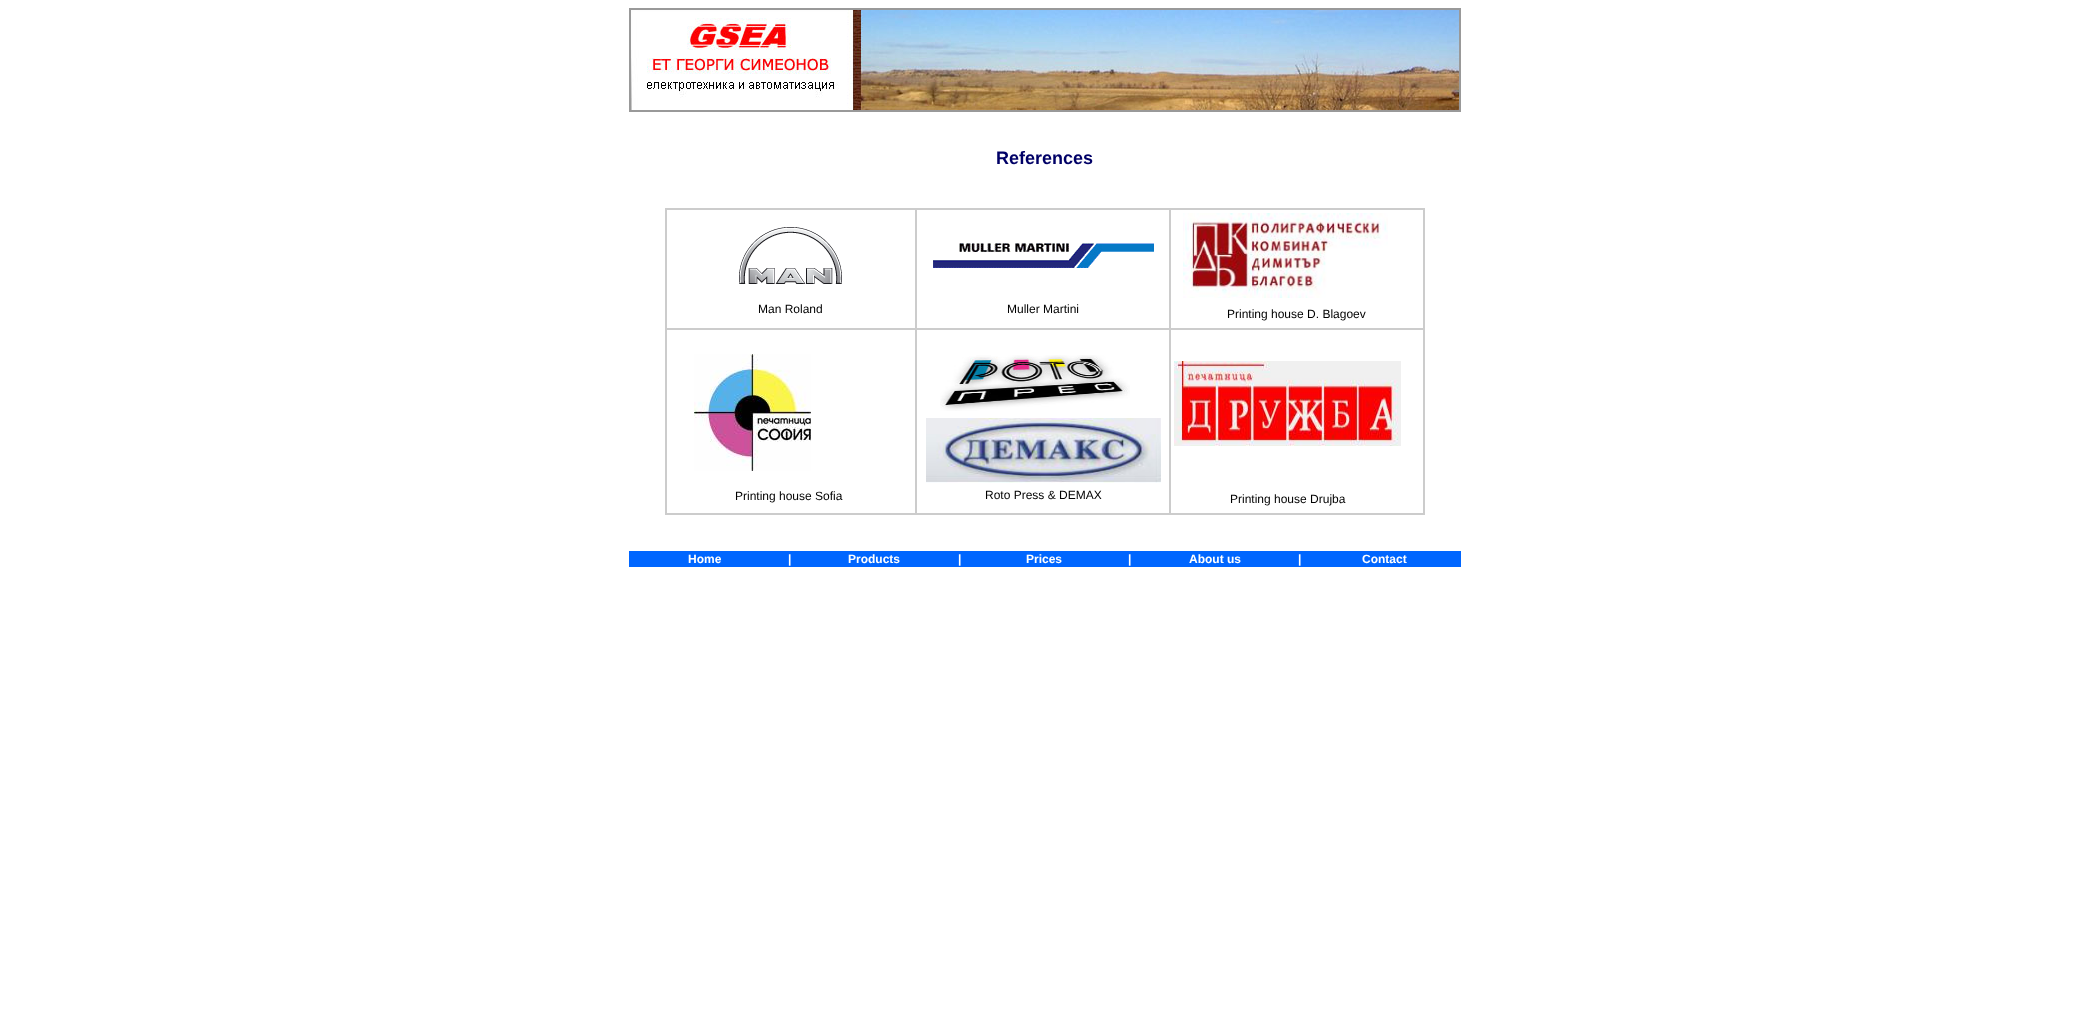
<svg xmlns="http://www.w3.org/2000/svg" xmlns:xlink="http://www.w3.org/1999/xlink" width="2089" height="1027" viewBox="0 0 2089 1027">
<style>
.cls-1{font:bold 18px Liberation Sans;fill:#000066}
.cls-2{font:12px Liberation Sans;fill:#000000}
.cls-3{font:bold 12px Liberation Sans;fill:#ffffff}
</style>
<rect width="100%" height="100%" fill="#ffffff"/>
<rect fill="none" stroke="#999999" x="629.5" y="8.5" width="831" height="103"/>
<rect fill="none" stroke="#999999" x="630.5" y="9.5" width="829" height="101"/>
<image xlink:href="image0.png" x="631" y="10" width="828" height="100"/>
<rect fill="none" stroke="#cccccc" x="665.5" y="208.5" width="759" height="306"/>
<rect fill="none" stroke="#cccccc" x="666.5" y="209.5" width="249" height="119"/>
<image xlink:href="image1.png" x="739" y="227" width="103" height="57"/>
<rect fill="none" stroke="#cccccc" x="916.5" y="209.5" width="253" height="119"/>
<image xlink:href="image2.png" x="933" y="243" width="221" height="25"/>
<rect fill="none" stroke="#cccccc" x="1170.5" y="209.5" width="253" height="119"/>
<image xlink:href="image3.png" x="1183" y="213" width="205" height="85"/>
<rect fill="none" stroke="#cccccc" x="666.5" y="329.5" width="249" height="184"/>
<image xlink:href="image4.png" x="694" y="354" width="117" height="117"/>
<rect fill="none" stroke="#cccccc" x="916.5" y="329.5" width="253" height="184"/>
<image xlink:href="image5.png" x="940" y="355" width="190" height="56"/>
<image xlink:href="image6.png" x="926" y="418" width="235" height="65"/>
<rect fill="none" stroke="#cccccc" x="1170.5" y="329.5" width="253" height="184"/>
<image xlink:href="image7.png" x="1174" y="361" width="227" height="85"/>
<rect fill="#0066ff" x="629" y="551" width="832" height="16"/>
<text class="cls-1" x="996" y="164">References</text>
<text class="cls-2" x="758" y="313">Man Roland</text>
<text class="cls-2" x="1007" y="313">Muller Martini</text>
<text class="cls-2" x="1227" y="318">Printing house D. Blagoev</text>
<text class="cls-2" x="735" y="500">Printing house Sofia</text>
<text class="cls-2" x="985" y="499">Roto Press &amp; DEMAX</text>
<text class="cls-2" x="1230" y="503">Printing house Drujba</text>
<text class="cls-3" x="688" y="563">Home</text>
<text class="cls-3" x="788" y="563">|</text>
<text class="cls-3" x="848" y="563">Products</text>
<text class="cls-3" x="958" y="563">|</text>
<text class="cls-3" x="1026" y="563">Prices</text>
<text class="cls-3" x="1128" y="563">|</text>
<text class="cls-3" x="1189" y="563">About us</text>
<text class="cls-3" x="1298" y="563">|</text>
<text class="cls-3" x="1362" y="563">Contact</text>
</svg>
